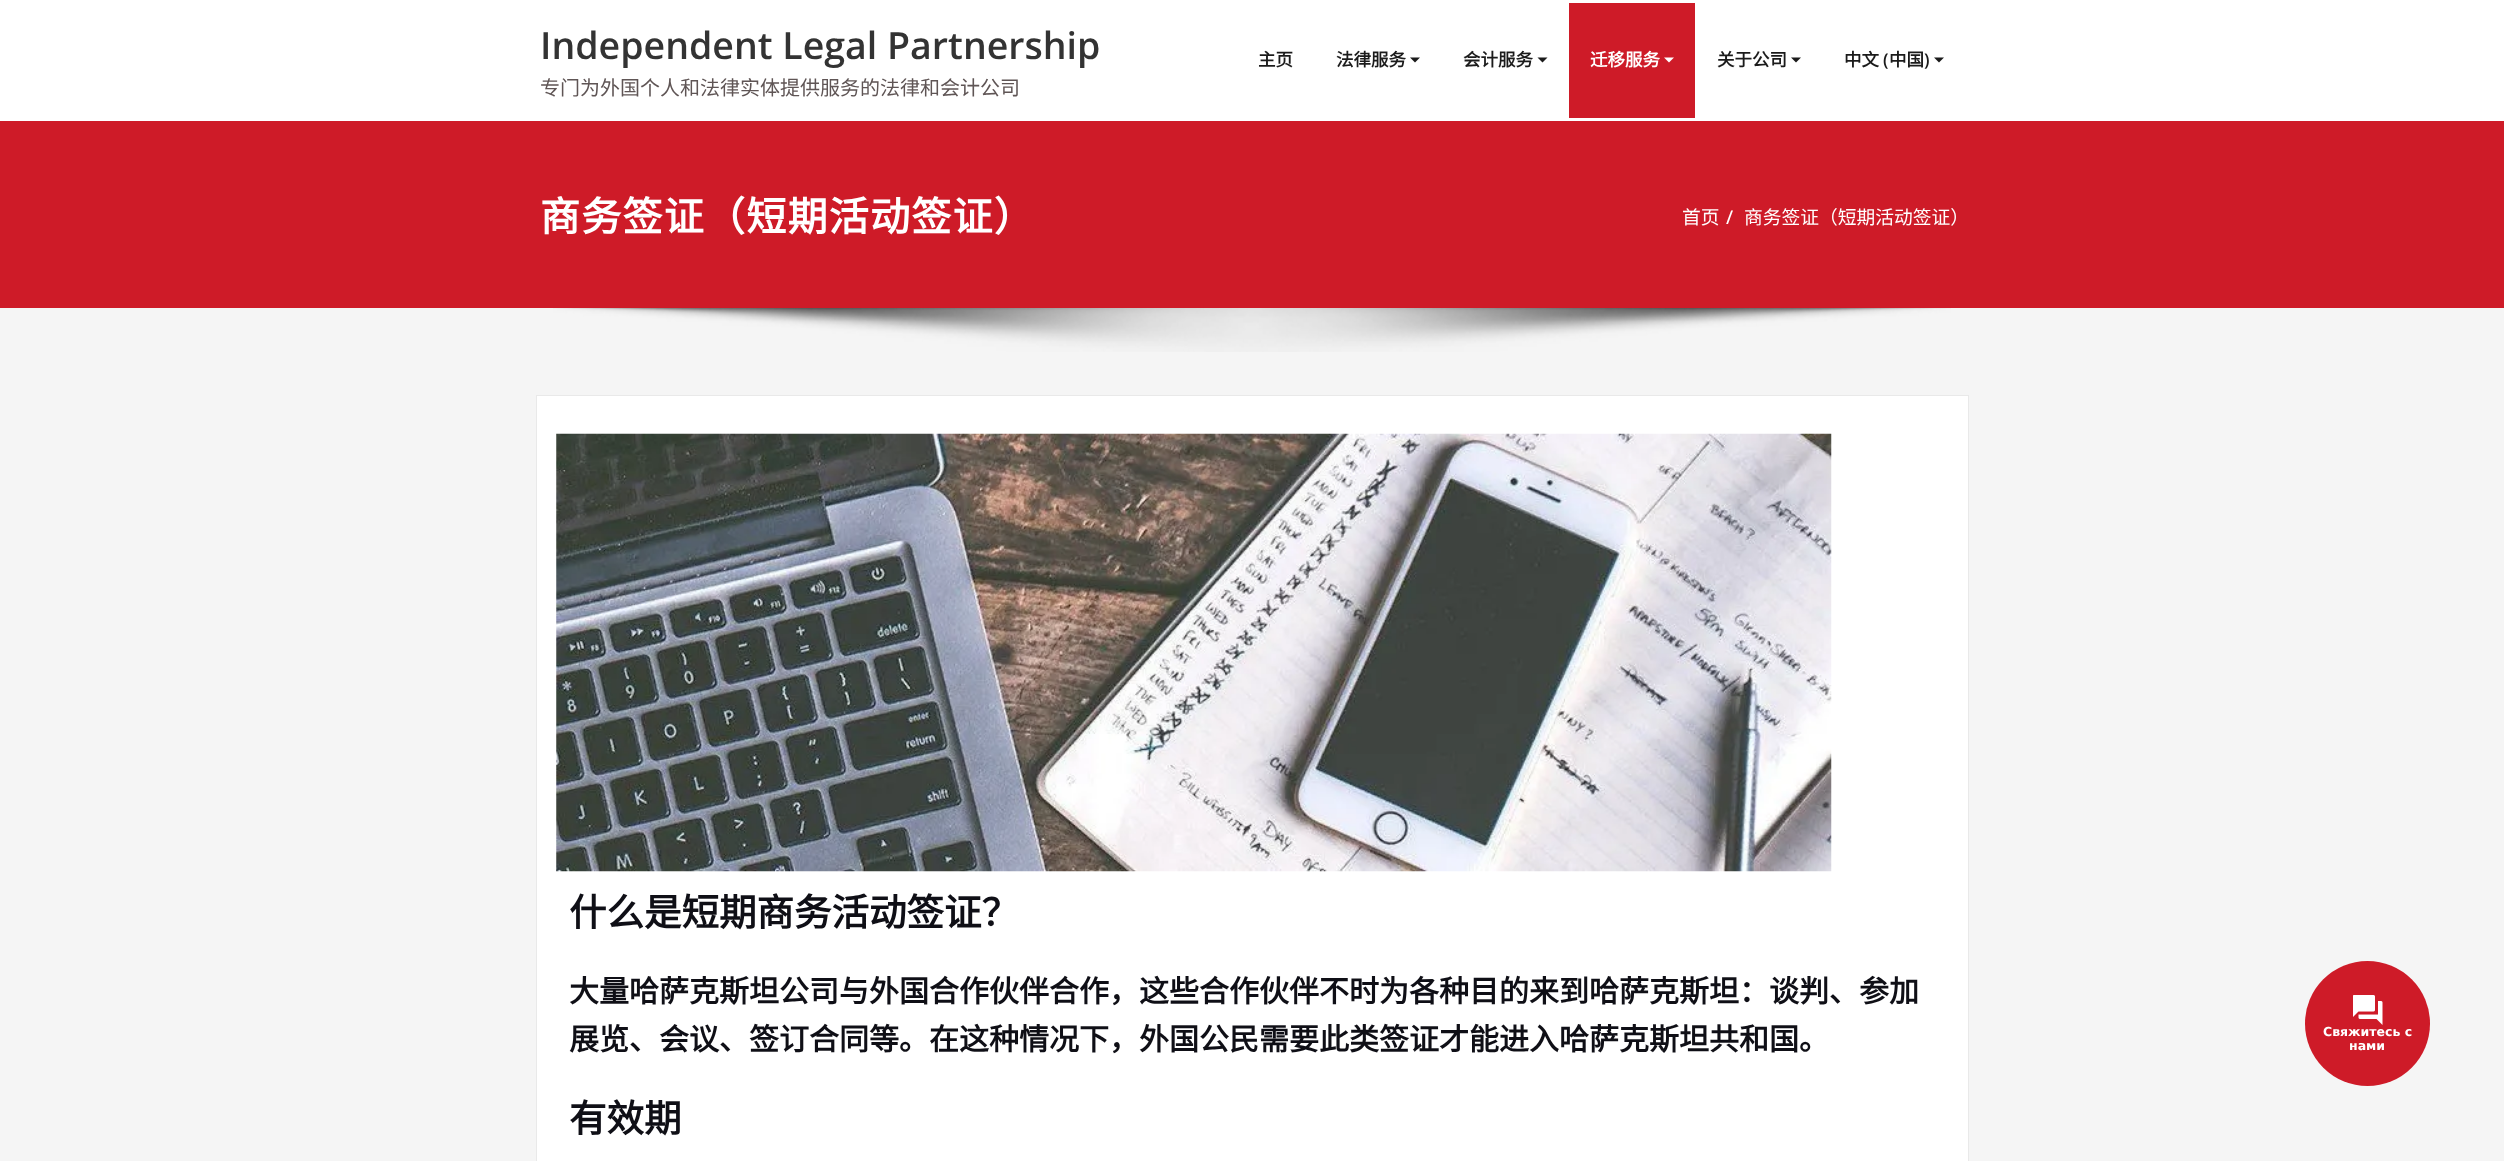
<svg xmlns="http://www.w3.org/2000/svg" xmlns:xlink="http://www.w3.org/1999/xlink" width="2504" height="1161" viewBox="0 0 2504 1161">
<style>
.cls-1{font:600 37.5px Open Sans;fill:#333333}
.cls-2{font:20px Noto Sans CJK SC;fill:#5f5555}
.cls-3{font:bold 17.5px Noto Sans CJK SC;fill:#1b1b1b}
.cls-4{font:bold 17.5px Noto Sans CJK SC;fill:#ffffff}
.cls-5{font:600 17.5px Open Sans;fill:#1b1b1b}
.cls-6{font:bold 40px Noto Sans CJK SC;letter-spacing:1.25px;fill:#ffffff}
.cls-7{font:18.75px Noto Sans CJK SC;fill:#ffffff}
.cls-8{font:500 18.75px Open Sans;fill:#ffffff}
.cls-9{font:bold 37.5px Noto Sans CJK SC;fill:#0f0f16}
.cls-10{font:bold 30px Noto Sans CJK SC;fill:#0f0f16}
.cls-11{font:bold 12.5px DejaVu Sans;fill:#ffffff}
</style>
<rect width="100%" height="100%" fill="#f5f5f5"/>
<rect fill="#ffffff" x="0" y="0" width="2504" height="121"/>
<path fill="#1b1b1b" d="M1410 57.5H1420L1415 62.5Z"/>
<path fill="#1b1b1b" d="M1537.5 57.5H1547.5L1542.5 62.5Z"/>
<rect fill="#ce1b28" x="1569" y="3" width="126" height="115"/>
<path fill="#ffffff" d="M1664 57.5H1674L1669 62.5Z"/>
<path fill="#1b1b1b" d="M1791 57.5H1801L1796 62.5Z"/>
<path fill="#1b1b1b" d="M1934 57.5H1944L1939 62.5Z"/>
<rect fill="#ce1b28" x="0" y="121" width="2504" height="187"/>
<image xlink:href="image0.png" x="553" y="308" width="1398" height="44"/>
<rect fill="#ffffff" stroke="#e9e9e9" x="536.5" y="395.5" width="1432" height="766"/>
<image xlink:href="image1.png" x="556" y="433" width="1276" height="439"/>
<circle fill="#ce1b28" cx="2367.5" cy="1023.5" r="62.5"/>
<image xlink:href="image2.png" x="2353" y="995" width="30" height="30"/>
<text class="cls-1" x="540" y="59">Independent Legal Partnership</text>
<text class="cls-2" x="540" y="95">专门为外国个人和法律实体提供服务的法律和会计公司</text>
<text class="cls-3" x="1258" y="66">主页</text>
<text class="cls-3" x="1336" y="66">法律服务</text>
<text class="cls-3" x="1463" y="66">会计服务</text>
<text class="cls-4" x="1590" y="66">迁移服务</text>
<text class="cls-3" x="1717" y="66">关于公司</text>
<text class="cls-3" x="1844" y="66">中文</text>
<text class="cls-5" x="1883" y="66">(</text>
<text class="cls-3" x="1889" y="66">中国</text>
<text class="cls-5" x="1924" y="66">)</text>
<text class="cls-6" x="540" y="231">商务签证（短期活动签证）</text>
<text class="cls-7" x="1682" y="224">首页</text>
<text class="cls-8" x="1726" y="224">/</text>
<text class="cls-7" x="1744" y="224">商务签证（短期活动签证）</text>
<text class="cls-9" x="569" y="926">什么是短期商务活动签证？</text>
<text class="cls-10"><tspan x="569" y="1002">大量哈萨克斯坦公司与外国合作伙伴合作，这些合作伙伴不时为各种目的来到哈萨克斯坦：谈判、参加</tspan><tspan x="569" y="1050">展览、会议、签订合同等。在这种情况下，外国公民需要此类签证才能进入哈萨克斯坦共和国。</tspan></text>
<text class="cls-9" x="569" y="1132">有效期</text>
<text class="cls-11" x="2323" y="1036">Свяжитесь с</text>
<text class="cls-11" x="2349" y="1050">нами</text>
</svg>
